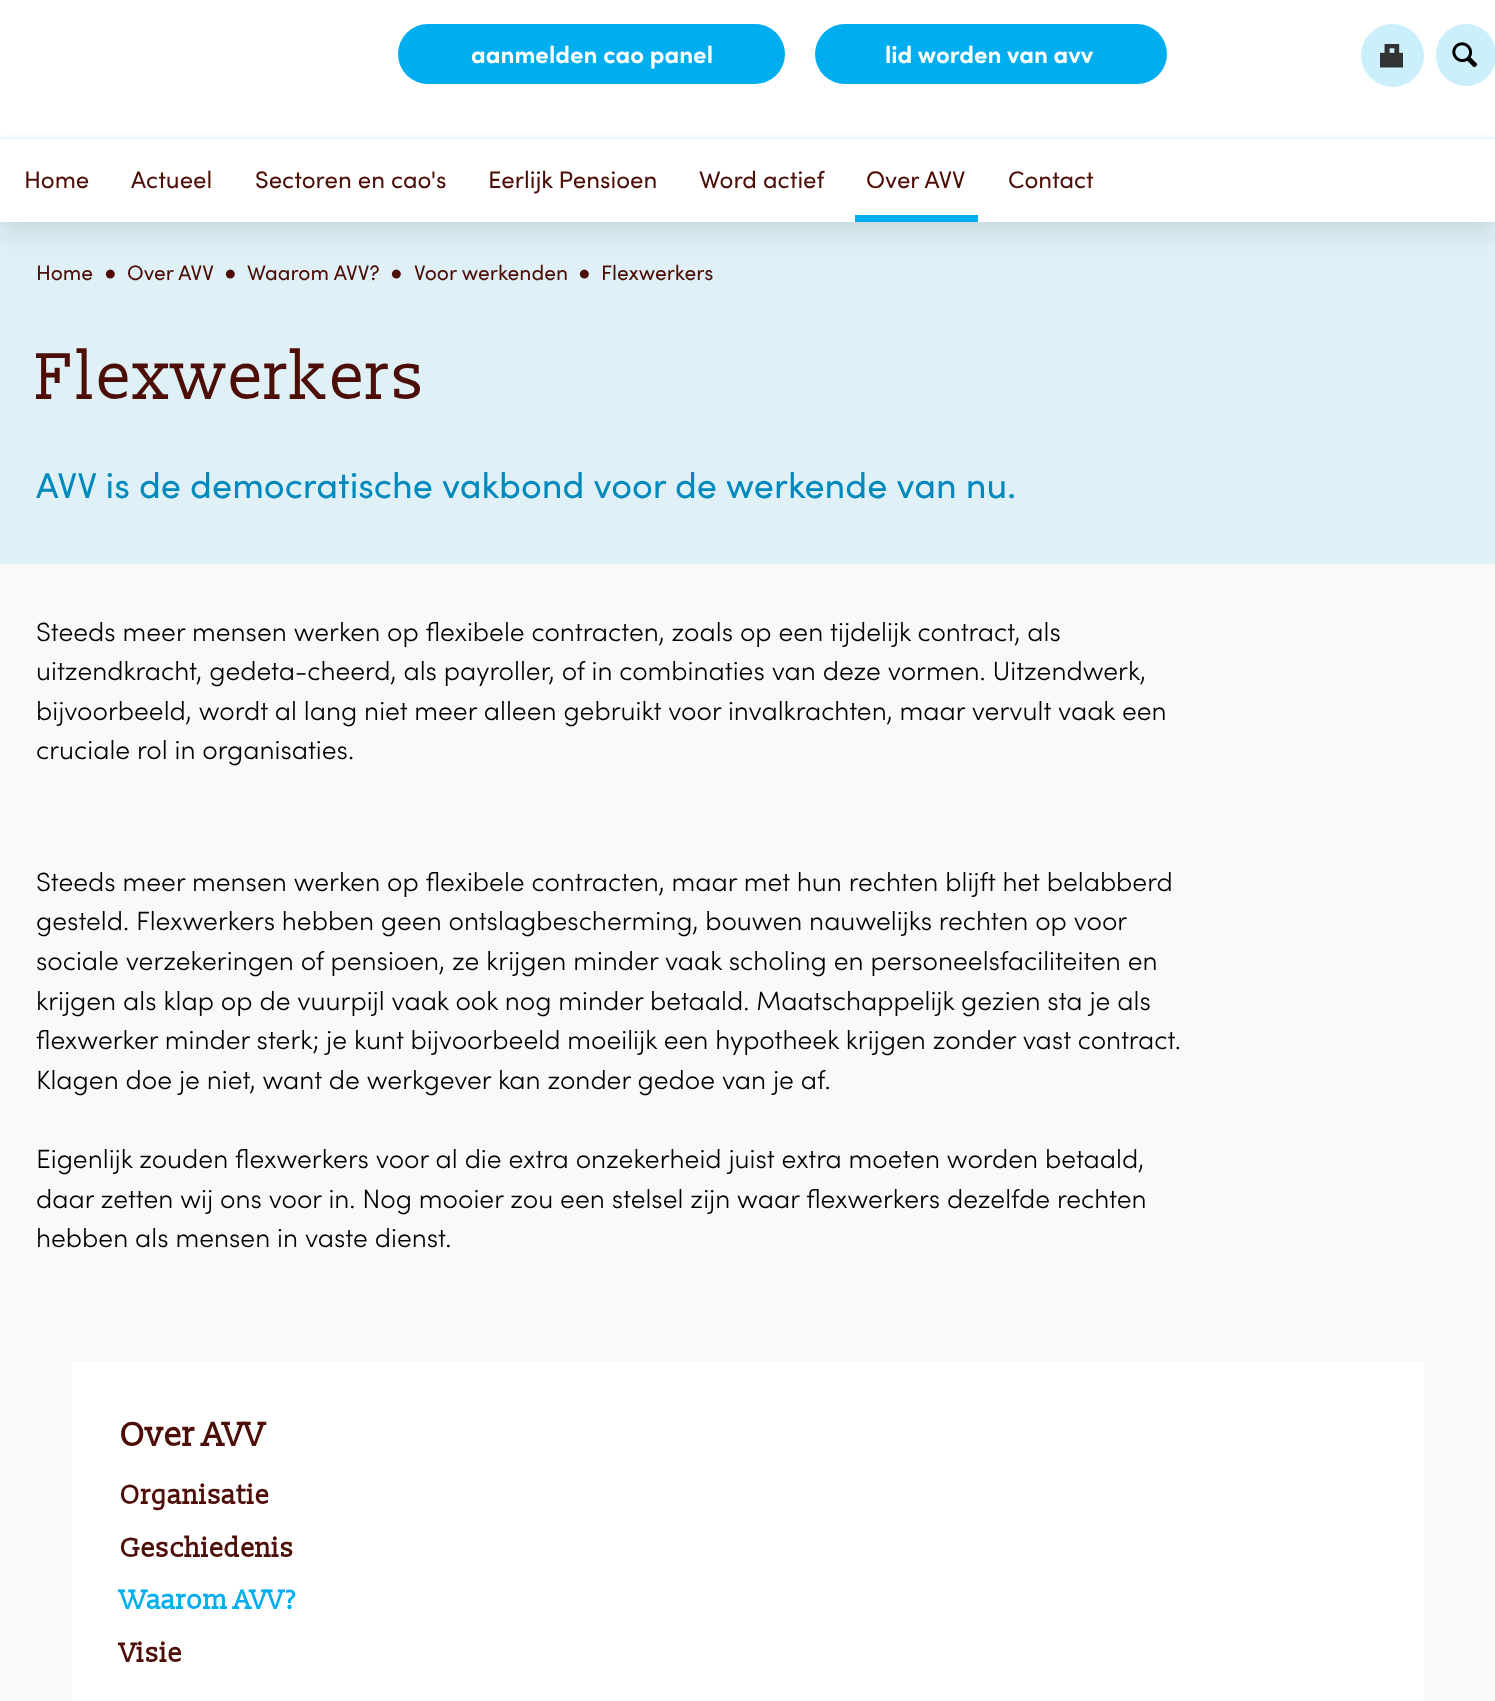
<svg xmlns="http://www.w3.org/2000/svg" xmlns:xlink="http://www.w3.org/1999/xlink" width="1495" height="1701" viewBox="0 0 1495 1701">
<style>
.cls-1{font:bold 24px Sofia;fill:#ffffff}
.cls-2{font:24px Sofia;fill:#4c0e07}
.cls-3{font:21px Sofia;fill:#4c0e07}
.cls-4{font:bold 21px Liberation Sans;fill:#4c0e07}
.cls-5{font:66px 'Slabo 13px';fill:#4c0e07}
.cls-6{font:36px Sofia;fill:#0089bc}
.cls-7{font:300 26.4px Sofia;fill:#000000}
.cls-8{font:bold 33.75px 'Slabo 13px';fill:#4c0e07}
.cls-9{font:bold 27px 'Slabo 13px';fill:#4c0e07}
.cls-10{font:bold 27px 'Slabo 13px';fill:#00aeef}
</style>
<rect width="100%" height="100%" fill="#f9f9f9"/>
<rect fill="#ffffff" x="0" y="132" width="1495" height="5"/>
<rect fill="#dff1f7" x="0" y="222" width="1495" height="342"/>
<rect fill="#000000" fill-opacity="0.1" filter="blur(12px)" x="0" y="149" width="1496" height="85"/>
<rect fill="#ffffff" x="0" y="0" width="1495" height="132"/>
<rect fill="#00aeef" x="398" y="24" width="387" height="60" rx="30"/>
<rect fill="#00aeef" x="815" y="24" width="352" height="60" rx="30"/>
<circle fill="#cceffc" cx="1392.5" cy="55.5" r="31.5"/>
<image xlink:href="image0.png" x="1380" y="44" width="23" height="24"/>
<rect fill="#cceffc" x="1436" y="24" width="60" height="62" rx="30"/>
<image xlink:href="image1.png" x="1452" y="42" width="26" height="26"/>
<rect fill="#ffffff" x="0" y="139" width="1495" height="83"/>
<rect fill="#e6f7fd" x="0" y="137" width="1495" height="2"/>
<rect fill="#00aeef" x="855" y="215" width="123" height="7"/>
<rect fill="#ffffff" x="72" y="1362" width="1352" height="339"/>
<text class="cls-1" x="471" y="63">aanmelden cao panel</text>
<text class="cls-1" x="885" y="63">lid worden van avv</text>
<text class="cls-2" x="24" y="188">Home</text>
<text class="cls-2" x="131" y="188">Actueel</text>
<text class="cls-2" x="255" y="188">Sectoren en cao's</text>
<text class="cls-2" x="488" y="188">Eerlijk Pensioen</text>
<text class="cls-2" x="699" y="188">Word actief</text>
<text class="cls-2" x="866" y="188">Over AVV</text>
<text class="cls-2" x="1008" y="188">Contact</text>
<text class="cls-3" x="36" y="280">Home</text>
<text class="cls-4" x="104" y="280">●</text>
<text class="cls-3" x="127" y="280">Over AVV</text>
<text class="cls-4" x="224" y="280">●</text>
<text class="cls-3" x="247" y="280">Waarom AVV?</text>
<text class="cls-4" x="390" y="280">●</text>
<text class="cls-3" x="414" y="280">Voor werkenden</text>
<text class="cls-4" x="578" y="280">●</text>
<text class="cls-3" x="601" y="280">Flexwerkers</text>
<text class="cls-5" x="36" y="399">Flexwerkers</text>
<text class="cls-6" x="36" y="498">AVV is de democratische vakbond voor de werkende van nu.</text>
<text class="cls-7"><tspan x="36" y="641">Steeds meer mensen werken op flexibele contracten, zoals op een tijdelijk contract, als</tspan><tspan x="36" y="680">uitzendkracht, gedeta-cheerd, als payroller, of in combinaties van deze vormen. Uitzendwerk,</tspan><tspan x="36" y="720">bijvoorbeeld, wordt al lang niet meer alleen gebruikt voor invalkrachten, maar vervult vaak een</tspan><tspan x="36" y="759">cruciale rol in organisaties.</tspan></text>
<text class="cls-7"><tspan x="36" y="891">Steeds meer mensen werken op flexibele contracten, maar met hun rechten blijft het belabberd</tspan><tspan x="36" y="930" word-spacing="-0.1">gesteld. Flexwerkers hebben geen ontslagbescherming, bouwen nauwelijks rechten op voor</tspan><tspan x="36" y="970">sociale verzekeringen of pensioen, ze krijgen minder vaak scholing en personeelsfaciliteiten en</tspan><tspan x="36" y="1010">krijgen als klap op de vuurpijl vaak ook nog minder betaald. Maatschappelijk gezien sta je als</tspan><tspan x="36" y="1049">flexwerker minder sterk; je kunt bijvoorbeeld moeilijk een hypotheek krijgen zonder vast contract.</tspan><tspan x="36" y="1089">Klagen doe je niet, want de werkgever kan zonder gedoe van je af.</tspan></text>
<text class="cls-7"><tspan x="36" y="1168">Eigenlijk zouden flexwerkers voor al die extra onzekerheid juist extra moeten worden betaald,</tspan><tspan x="36" y="1208">daar zetten wij ons voor in. Nog mooier zou een stelsel zijn waar flexwerkers dezelfde rechten</tspan><tspan x="36" y="1247">hebben als mensen in vaste dienst.</tspan></text>
<text class="cls-8" x="120" y="1446">Over AVV</text>
<text class="cls-9"><tspan x="120" y="1504">Organisatie</tspan><tspan x="120" y="1557">Geschiedenis</tspan></text>
<text class="cls-10" x="120" y="1609">Waarom AVV?</text>
<text class="cls-9" x="120" y="1662">Visie</text>
</svg>
